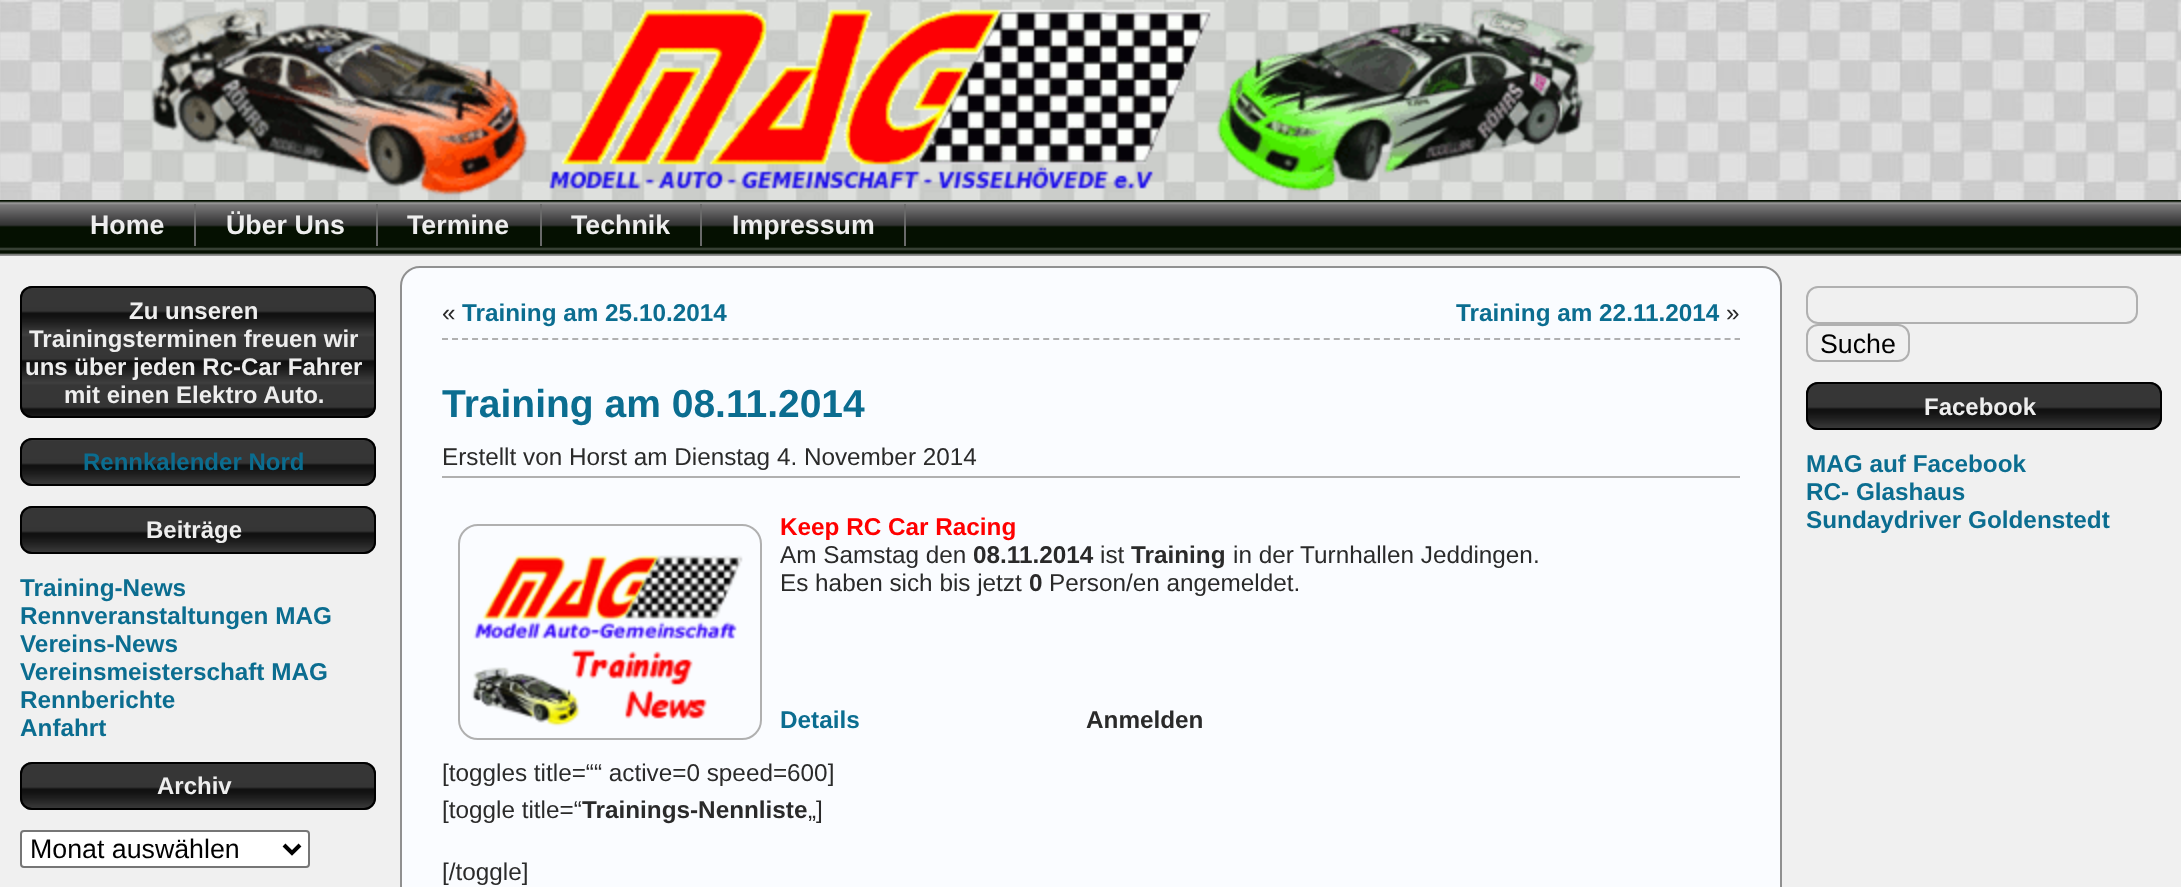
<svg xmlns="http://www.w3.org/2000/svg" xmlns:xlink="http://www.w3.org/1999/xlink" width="2181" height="887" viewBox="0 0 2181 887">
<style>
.cls-1{font:bold 26.75px Liberation Sans;fill:#eeeeee}
.cls-2{font:bold 24px Liberation Sans;fill:#eeeeee}
.cls-3{font:bold 24px Liberation Sans;fill:#0b6d90}
.cls-4{font:bold 24.3px Liberation Sans;fill:#0b6d90}
.cls-5{font:26.75px Liberation Sans;fill:#000000}
.cls-6{font:24.3px Liberation Sans;fill:#2a2a2a}
.cls-7{font:bold 39px Liberation Sans;fill:#0b6d90}
.cls-8{font:bold 24.3px Liberation Sans;fill:#ff0000}
.cls-9{font:bold 24.3px Liberation Sans;fill:#2a2a2a}
</style>
<rect width="100%" height="100%" fill="#f0f0f0"/>
<image xlink:href="image0.png" x="0" y="0" width="2181" height="200"/>
<image xlink:href="image1.png" x="124" y="0" width="1494" height="200"/>
<image xlink:href="image2.png" x="0" y="200" width="2181" height="56"/>
<rect fill="#696969" x="194" y="204" width="2" height="42"/>
<rect fill="#696969" x="376" y="204" width="2" height="42"/>
<rect fill="#696969" x="540" y="204" width="2" height="42"/>
<rect fill="#696969" x="700" y="204" width="2" height="42"/>
<rect fill="#696969" x="904" y="204" width="2" height="42"/>
<image xlink:href="image3.png" x="20" y="286" width="356" height="132"/>
<rect fill="none" stroke="#000000" stroke-width="2" x="21" y="287" width="354" height="130" rx="11"/>
<image xlink:href="image4.png" x="20" y="438" width="356" height="48"/>
<rect fill="none" stroke="#000000" stroke-width="2" x="21" y="439" width="354" height="46" rx="11"/>
<image xlink:href="image5.png" x="20" y="506" width="356" height="48"/>
<rect fill="none" stroke="#000000" stroke-width="2" x="21" y="507" width="354" height="46" rx="11"/>
<image xlink:href="image6.png" x="20" y="762" width="356" height="48"/>
<rect fill="none" stroke="#000000" stroke-width="2" x="21" y="763" width="354" height="46" rx="11"/>
<rect fill="#ffffff" stroke="#767676" stroke-width="2" x="21" y="831" width="288" height="36" rx="3"/>
<path fill="none" stroke="#000000" stroke-width="4" d="M284 845L292 853L300 845"/>
<rect fill="#fafcff" stroke="#909090" stroke-width="2" x="401" y="267" width="1380" height="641" rx="19"/>
<path fill="none" stroke="#b0b0b0" stroke-width="2" stroke-dasharray="6 4.02" d="M442 339H1740"/>
<rect fill="#b0b0b0" x="442" y="476" width="1298" height="2"/>
<rect fill="none" stroke="#b0b0b0" stroke-width="2" x="459" y="525" width="302" height="214" rx="19"/>
<image xlink:href="image7.png" x="471" y="555" width="272" height="172"/>
<rect fill="none" stroke="#b0b0b0" stroke-width="2" x="1807" y="287" width="330" height="36" rx="11"/>
<rect fill="none" stroke="#b0b0b0" stroke-width="2" x="1807" y="325" width="102" height="36" rx="11"/>
<image xlink:href="image8.png" x="1806" y="382" width="356" height="48"/>
<rect fill="none" stroke="#000000" stroke-width="2" x="1807" y="383" width="354" height="46" rx="11"/>
<text class="cls-1" x="90" y="234">Home</text>
<text class="cls-1" x="226" y="234">Über Uns</text>
<text class="cls-1" x="407" y="234">Termine</text>
<text class="cls-1" x="571" y="234">Technik</text>
<text class="cls-1" x="732" y="234">Impressum</text>
<text class="cls-2" x="129" y="319">Zu unseren</text>
<text class="cls-2" x="29" y="347">Trainingsterminen freuen wir</text>
<text class="cls-2" x="25" y="375">uns über jeden Rc-Car Fahrer</text>
<text class="cls-2" x="64" y="403">mit einen Elektro Auto.</text>
<text class="cls-3" x="83" y="470">Rennkalender Nord</text>
<text class="cls-2" x="146" y="538">Beiträge</text>
<text class="cls-4"><tspan x="20" y="596">Training-News</tspan><tspan x="20" y="624">Rennveranstaltungen MAG</tspan><tspan x="20" y="652">Vereins-News</tspan><tspan x="20" y="680">Vereinsmeisterschaft MAG</tspan><tspan x="20" y="708">Rennberichte</tspan><tspan x="20" y="736">Anfahrt</tspan></text>
<text class="cls-2" x="157" y="794">Archiv</text>
<text class="cls-5" x="30" y="858">Monat auswählen</text>
<text class="cls-6" x="442" y="321">«</text>
<text class="cls-4" x="462" y="321">Training am 25.10.2014</text>
<text class="cls-4" x="1456" y="321">Training am 22.11.2014</text>
<text class="cls-6" x="1726" y="321">»</text>
<text class="cls-7" x="442" y="417">Training am 08.11.2014</text>
<text class="cls-6" x="442" y="465">Erstellt von Horst am Dienstag 4. November 2014</text>
<text class="cls-8" x="780" y="535">Keep RC Car Racing</text>
<text class="cls-6" x="780" y="563">Am Samstag den</text>
<text class="cls-9" x="973" y="563">08.11.2014</text>
<text class="cls-6" x="1100" y="563">ist</text>
<text class="cls-9" x="1131" y="563">Training</text>
<text class="cls-6" x="1233" y="563">in der Turnhallen Jeddingen.</text>
<text class="cls-6" x="780" y="591">Es haben sich bis jetzt</text>
<text class="cls-9" x="1029" y="591">0</text>
<text class="cls-6" x="1049" y="591">Person/en angemeldet.</text>
<text class="cls-4" x="780" y="728">Details</text>
<text class="cls-9" x="1086" y="728">Anmelden</text>
<text class="cls-6"><tspan x="442" y="781">[toggles title=““ active=0 speed=600]</tspan><tspan x="442" y="818">[toggle title=“</tspan></text>
<text class="cls-9" x="582" y="818">Trainings-Nennliste</text>
<text class="cls-6" x="808" y="818">„]</text>
<text class="cls-6" x="442" y="880">[/toggle]</text>
<text class="cls-5" x="1820" y="353">Suche</text>
<text class="cls-2" x="1924" y="415">Facebook</text>
<text class="cls-4"><tspan x="1806" y="472">MAG auf Facebook</tspan><tspan x="1806" y="500">RC- Glashaus</tspan><tspan x="1806" y="528">Sundaydriver Goldenstedt</tspan></text>
</svg>
